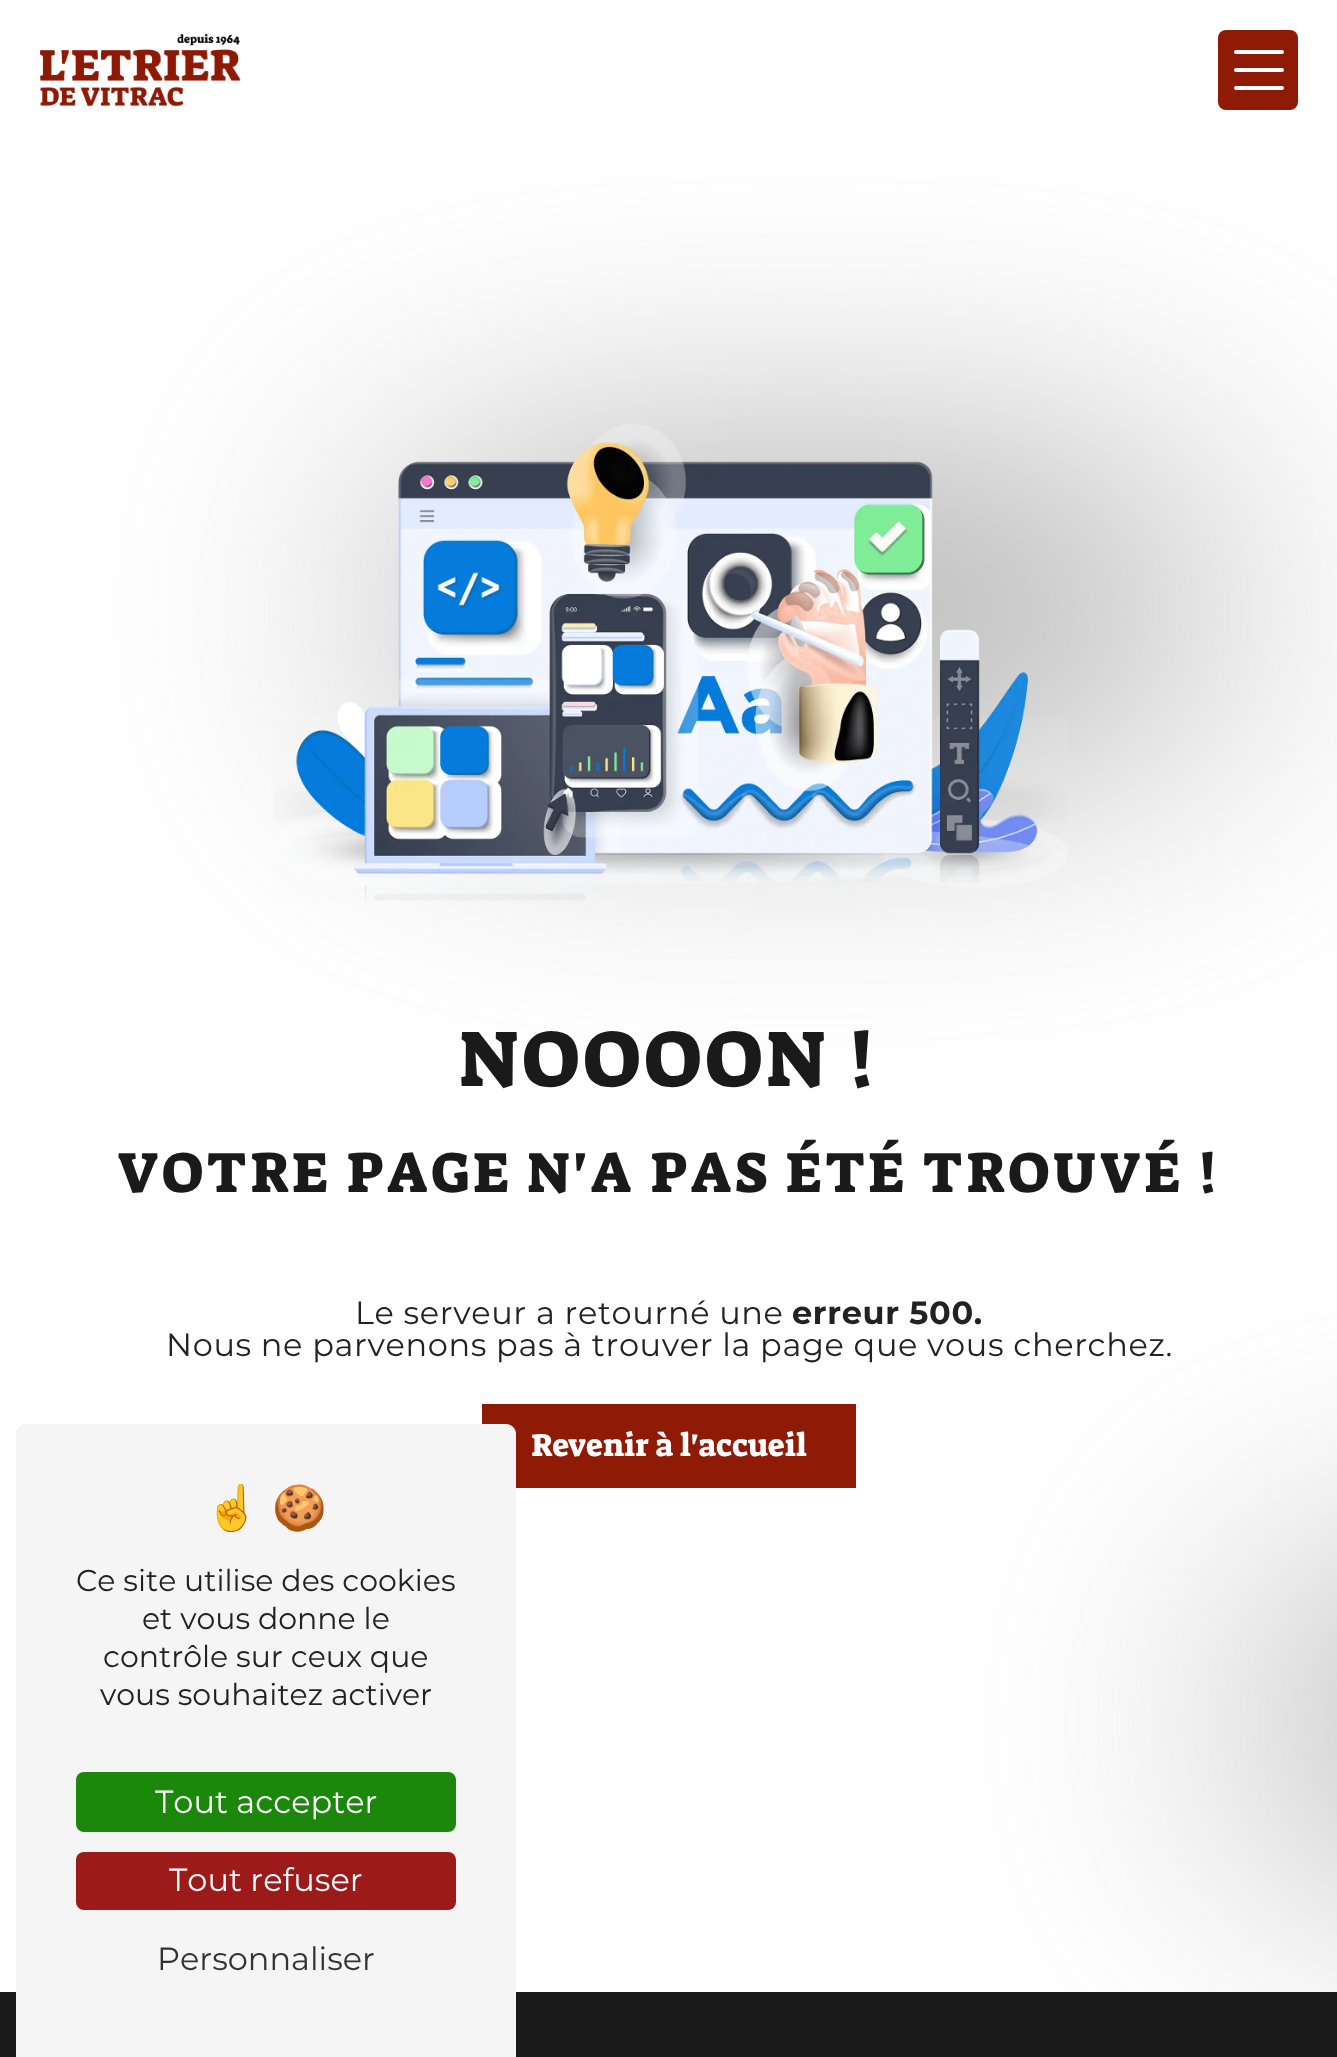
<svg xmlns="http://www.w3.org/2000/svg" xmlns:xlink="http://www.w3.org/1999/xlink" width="1337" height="2057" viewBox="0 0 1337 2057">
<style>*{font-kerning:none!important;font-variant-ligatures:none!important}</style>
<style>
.cls-1{font:80px Suez One;letter-spacing:3.2px;fill:#1a1a1a}
.cls-2{font:57.6px Suez One;letter-spacing:3.2px;fill:#1a1a1a}
.cls-3{font:32px Montserrat;letter-spacing:0.65px;fill:#222222}
.cls-4{font:bold 32px Montserrat;letter-spacing:0.65px;fill:#222222}
.cls-5{font:32px Suez One;fill:#ffffff}
.cls-6{font:44px Noto Color Emoji;fill:#222222}
.cls-7{font:30px Montserrat;fill:#222222}
.cls-8{font:32px Montserrat;fill:#ffffff}
.cls-9{font:32px Montserrat;fill:#333333}
</style>
<rect width="100%" height="100%" fill="#ffffff"/>
<rect fill="#808080" filter="blur(160px)" x="402" y="510" width="800" height="200" rx="100"/>
<image xlink:href="image0.png" x="40" y="33" width="201" height="74"/>
<rect fill="#8f1b07" x="1218" y="30" width="80" height="80" rx="8"/>
<rect fill="#ffffff" x="1234" y="68" width="50" height="4" rx="2"/>
<rect fill="#ffffff" x="1234" y="50" width="50" height="4" rx="2"/>
<rect fill="#ffffff" x="1234" y="86" width="50" height="4" rx="2"/>
<rect fill="#808080" filter="blur(160px)" x="1272" y="1622" width="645" height="200" rx="100"/>
<image xlink:href="image1.png" x="273" y="424" width="795" height="477"/>
<rect fill="#8f1b07" x="482" y="1404" width="374" height="84"/>
<rect fill="#1a1a1a" x="0" y="1992" width="1337" height="65"/>
<path fill="#f5f5f5" d="M26 1424H506C511.5 1424 516 1428.5 516 1434V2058H16V1434C16 1428.5 20.5 1424 26 1424Z"/>
<rect fill="#1b870b" x="76" y="1772" width="380" height="60" rx="8"/>
<rect fill="#9c1a1a" x="76" y="1852" width="380" height="58" rx="8"/>
<text class="cls-1" x="459" y="1086">NOOOON !</text>
<text class="cls-2" x="117" y="1192">VOTRE PAGE</text>
<text class="cls-2" x="527" y="1192">N'A</text>
<text class="cls-2" x="650" y="1192">PAS ÉTÉ TROUVÉ !</text>
<text class="cls-3" x="355" y="1324">Le serveur a retourné une</text>
<text class="cls-4" x="792" y="1324">erreur 500.</text>
<text class="cls-3" x="166" y="1356">Nous ne parvenons pas à trouver la page que vous cherchez.</text>
<text class="cls-5" x="531" y="1456">Revenir à l'accueil</text>
<text class="cls-6" x="205" y="1523">☝</text>
<text class="cls-6" x="272" y="1523">🍪</text>
<text class="cls-7" x="76" y="1591">Ce site utilise des cookies</text>
<text class="cls-7" x="142" y="1629">et vous donne le</text>
<text class="cls-7" x="103" y="1667">contrôle sur ceux que</text>
<text class="cls-7" x="100" y="1705">vous souhaitez activer</text>
<text class="cls-8" x="155" y="1813">Tout accepter</text>
<text class="cls-8" x="169" y="1891">Tout refuser</text>
<text class="cls-9" x="157" y="1970">Personnaliser</text>
</svg>
